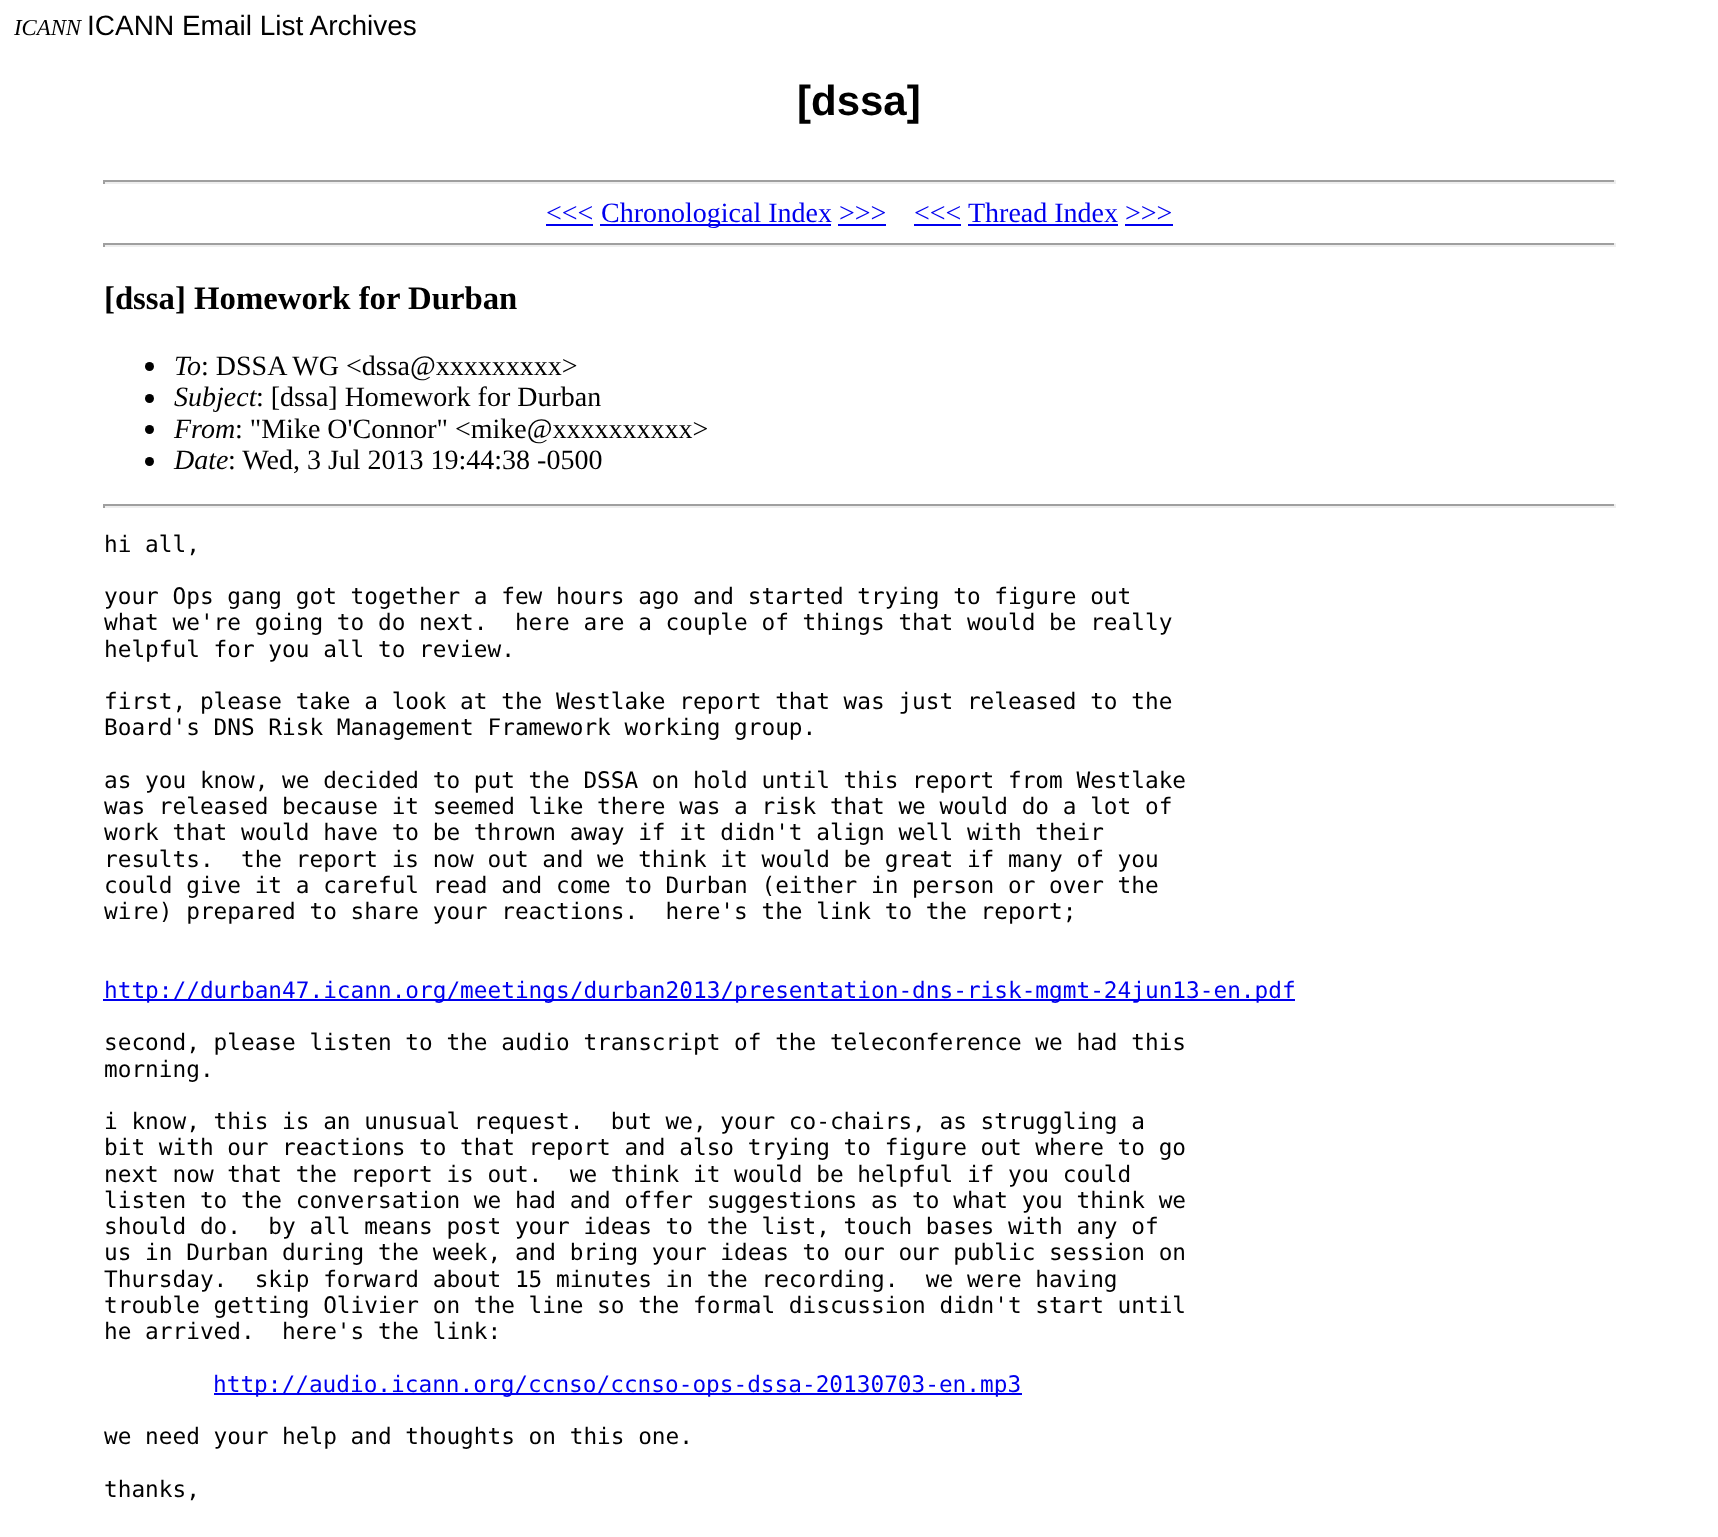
<svg xmlns="http://www.w3.org/2000/svg" xmlns:xlink="http://www.w3.org/1999/xlink" width="1718" height="1537" viewBox="0 0 1718 1537">
<style>
.cls-1{font:italic 22.75px Liberation Serif;fill:#000000}
.cls-2{font:28px Liberation Sans;fill:#000000}
.cls-3{font:bold 42px Liberation Sans;fill:#000000}
.cls-4{font:28px Liberation Serif;fill:#0000ee}
.cls-5{font:bold 32.75px Liberation Serif;fill:#000000}
.cls-6{font:italic 28px Liberation Serif;fill:#000000}
.cls-7{font:28px Liberation Serif;fill:#000000}
.cls-8{font:22.75px DejaVu Sans Mono;fill:#000000}
.cls-9{font:22.75px DejaVu Sans Mono;fill:#0000ee}
</style>
<rect width="100%" height="100%" fill="#ffffff"/>
<rect fill="#9f9f9f" x="103" y="180" width="1512" height="2"/>
<rect fill="#eeeeee" x="1614" y="180" width="2" height="4"/>
<rect fill="#eeeeee" x="103" y="182" width="1512" height="2"/>
<rect fill="#9f9f9f" x="103" y="180" width="2" height="4"/>
<rect fill="#0000ee" x="546" y="224" width="47" height="2"/>
<rect fill="#0000ee" x="600" y="224" width="231" height="2"/>
<rect fill="#0000ee" x="914" y="224" width="47" height="2"/>
<rect fill="#0000ee" x="968" y="224" width="150" height="2"/>
<rect fill="#0000ee" x="838" y="224" width="48" height="2"/>
<rect fill="#0000ee" x="1125" y="224" width="48" height="2"/>
<rect fill="#9f9f9f" x="103" y="243" width="1512" height="2"/>
<rect fill="#eeeeee" x="1614" y="243" width="2" height="4"/>
<rect fill="#eeeeee" x="103" y="245" width="1512" height="2"/>
<rect fill="#9f9f9f" x="103" y="243" width="2" height="4"/>
<circle fill="#000000" cx="149.5" cy="366.5" r="4.5"/>
<circle fill="#000000" cx="149.5" cy="398.5" r="4.5"/>
<circle fill="#000000" cx="149.5" cy="429.5" r="4.5"/>
<circle fill="#000000" cx="149.5" cy="461.5" r="4.5"/>
<rect fill="#9f9f9f" x="103" y="504" width="1512" height="2"/>
<rect fill="#eeeeee" x="1614" y="504" width="2" height="4"/>
<rect fill="#eeeeee" x="103" y="506" width="1512" height="2"/>
<rect fill="#9f9f9f" x="103" y="504" width="2" height="4"/>
<rect fill="#0000ee" x="103" y="999" width="1192" height="2"/>
<rect fill="#0000ee" x="214" y="1393" width="808" height="2"/>
<text class="cls-1" x="14" y="35">ICANN</text>
<text class="cls-2" x="87" y="35">ICANN Email List Archives</text>
<text class="cls-3" x="797" y="115">[dssa]</text>
<text class="cls-4" x="546" y="222">&lt;&lt;&lt;</text>
<text class="cls-4" x="601" y="222">Chronological Index &gt;&gt;&gt;</text>
<text class="cls-4" x="914" y="222">&lt;&lt;&lt;</text>
<text class="cls-4" x="968" y="222">Thread Index &gt;&gt;&gt;</text>
<text class="cls-5" x="104" y="309">[dssa] Homework for Durban</text>
<text class="cls-6" x="174" y="375">To</text>
<text class="cls-7" x="201" y="375">: DSSA WG &lt;dssa@xxxxxxxxx&gt;</text>
<text class="cls-6" x="174" y="406">Subject</text>
<text class="cls-7" x="256" y="406">: [dssa] Homework for Durban</text>
<text class="cls-6" x="174" y="438">From</text>
<text class="cls-7" x="235" y="438">: "Mike O'Connor" &lt;mike@xxxxxxxxxx&gt;</text>
<text class="cls-6" x="174" y="469">Date</text>
<text class="cls-7" x="228" y="469">: Wed, 3 Jul 2013 19:44:38 -0500</text>
<text class="cls-8" x="104" y="552">hi all,</text>
<text class="cls-8" xml:space="preserve"><tspan x="104" y="604">your Ops gang got together a few hours ago and started trying to figure out</tspan><tspan x="104" y="630">what we're going to do next.  here are a couple of things that would be really</tspan><tspan x="104" y="657">helpful for you all to review.</tspan></text>
<text class="cls-8"><tspan x="104" y="709">first, please take a look at the Westlake report that was just released to the</tspan><tspan x="104" y="735">Board's DNS Risk Management Framework working group.</tspan></text>
<text class="cls-8" xml:space="preserve"><tspan x="104" y="788">as you know, we decided to put the DSSA on hold until this report from Westlake</tspan><tspan x="104" y="814">was released because it seemed like there was a risk that we would do a lot of</tspan><tspan x="104" y="840">work that would have to be thrown away if it didn't align well with their</tspan><tspan x="104" y="867">results.  the report is now out and we think it would be great if many of you</tspan><tspan x="104" y="893">could give it a careful read and come to Durban (either in person or over the</tspan><tspan x="104" y="919">wire) prepared to share your reactions.  here's the link to the report;</tspan></text>
<text class="cls-9" x="104" y="998">http://durban47.icann.org/meetings/durban2013/presentation-dns-risk-mgmt-24jun13-en.pdf</text>
<text class="cls-8"><tspan x="104" y="1050">second, please listen to the audio transcript of the teleconference we had this</tspan><tspan x="104" y="1077">morning.</tspan></text>
<text class="cls-8" xml:space="preserve"><tspan x="104" y="1129">i know, this is an unusual request.  but we, your co-chairs, as struggling a</tspan><tspan x="104" y="1155">bit with our reactions to that report and also trying to figure out where to go</tspan><tspan x="104" y="1182">next now that the report is out.  we think it would be helpful if you could</tspan><tspan x="104" y="1208">listen to the conversation we had and offer suggestions as to what you think we</tspan><tspan x="104" y="1234">should do.  by all means post your ideas to the list, touch bases with any of</tspan><tspan x="104" y="1260">us in Durban during the week, and bring your ideas to our our public session on</tspan><tspan x="104" y="1287">Thursday.  skip forward about 15 minutes in the recording.  we were having</tspan><tspan x="104" y="1313">trouble getting Olivier on the line so the formal discussion didn't start until</tspan><tspan x="104" y="1339">he arrived.  here's the link:</tspan></text>
<text class="cls-9" x="213" y="1392">http://audio.icann.org/ccnso/ccnso-ops-dssa-20130703-en.mp3</text>
<text class="cls-8" x="104" y="1444">we need your help and thoughts on this one.</text>
<text class="cls-8" x="104" y="1497">thanks,</text>
</svg>
